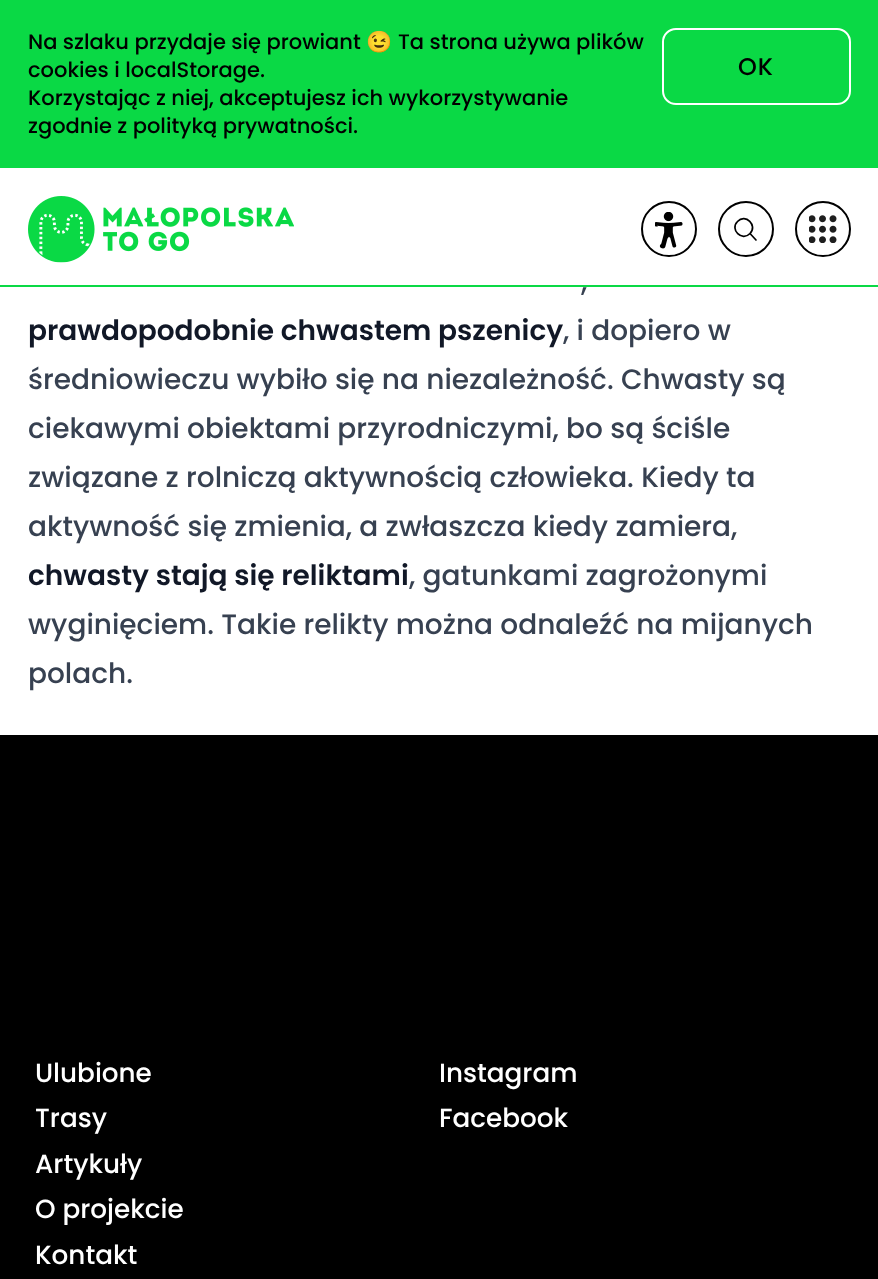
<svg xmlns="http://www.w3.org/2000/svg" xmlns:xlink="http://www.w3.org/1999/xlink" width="878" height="1279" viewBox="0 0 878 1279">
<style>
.cls-1{font:500 21px Poppins;fill:#000000}
.cls-2{font:21px Noto Color Emoji;fill:#000000}
.cls-3{font:500 24px Poppins;letter-spacing:1px;fill:#000000}
.cls-4{font:500 28px Poppins;fill:#374151}
.cls-5{font:600 28px Poppins;fill:#111827}
.cls-6{font:500 26.25px Poppins;fill:#ffffff}
</style>
<rect width="100%" height="100%" fill="#000000"/>
<rect fill="#0ad945" x="0" y="0" width="878" height="168"/>
<rect fill="none" stroke="#ffffff" stroke-width="2" x="663" y="29" width="187" height="75" rx="13"/>
<rect fill="#ffffff" x="0" y="168" width="878" height="117"/>
<rect fill="#0ad945" x="0" y="285" width="878" height="2"/>
<image xlink:href="image0.png" x="28" y="196" width="266" height="67"/>
<circle fill="none" stroke="#000000" stroke-width="2" cx="669" cy="229" r="27"/>
<image xlink:href="image1.png" x="655" y="212" width="28" height="37"/>
<circle fill="none" stroke="#000000" stroke-width="2" cx="746" cy="229" r="27"/>
<path fill="none" stroke="#000000" stroke-width="1.7" stroke-linecap="round" stroke-linejoin="round" d="M756 240L750 233.5M750 233.5C758 225.5 745.5 213 737.5 221.5C729.5 229.5 742 242 750 233.5Z"/>
<circle fill="none" stroke="#000000" stroke-width="2" cx="823" cy="229" r="27"/>
<image xlink:href="image2.png" x="809" y="215" width="28" height="28"/>
<rect fill="#ffffff" x="0" y="287" width="878" height="448"/>
<text class="cls-1" x="28" y="49">Na szlaku przydaje się prowiant</text>
<text class="cls-2" x="366" y="49">😉</text>
<text class="cls-1" x="398" y="49">Ta strona używa plików</text>
<text class="cls-1"><tspan x="28" y="77">cookies i localStorage.</tspan><tspan x="28" y="105">Korzystając z niej, akceptujesz ich wykorzystywanie</tspan><tspan x="28" y="133">zgodnie z polityką prywatności.</tspan></text>
<text class="cls-3" x="738" y="75">OK</text>
<text class="cls-4" x="581" y="291">,</text>
<text class="cls-5" x="28" y="340">prawdopodobnie chwastem pszenicy</text>
<text class="cls-4" x="563" y="340">, i dopiero w</text>
<text class="cls-4"><tspan x="28" y="389">średniowieczu wybiło się na niezależność. Chwasty są</tspan><tspan x="28" y="438">ciekawymi obiektami przyrodniczymi, bo są ściśle</tspan><tspan x="28" y="487">związane z rolniczą aktywnością człowieka. Kiedy ta</tspan><tspan x="28" y="536">aktywność się zmienia, a zwłaszcza kiedy zamiera,</tspan></text>
<text class="cls-5" x="28" y="585">chwasty stają się reliktami</text>
<text class="cls-4" x="409" y="585">, gatunkami zagrożonymi</text>
<text class="cls-4"><tspan x="28" y="634">wyginięciem. Takie relikty można odnaleźć na mijanych</tspan><tspan x="28" y="683">polach.</tspan></text>
<text class="cls-6"><tspan x="35" y="1082">Ulubione</tspan><tspan x="35" y="1127">Trasy</tspan><tspan x="35" y="1173">Artykuły</tspan><tspan x="35" y="1218">O projekcie</tspan><tspan x="35" y="1264">Kontakt</tspan></text>
<text class="cls-6"><tspan x="439" y="1082">Instagram</tspan><tspan x="439" y="1127">Facebook</tspan></text>
</svg>
